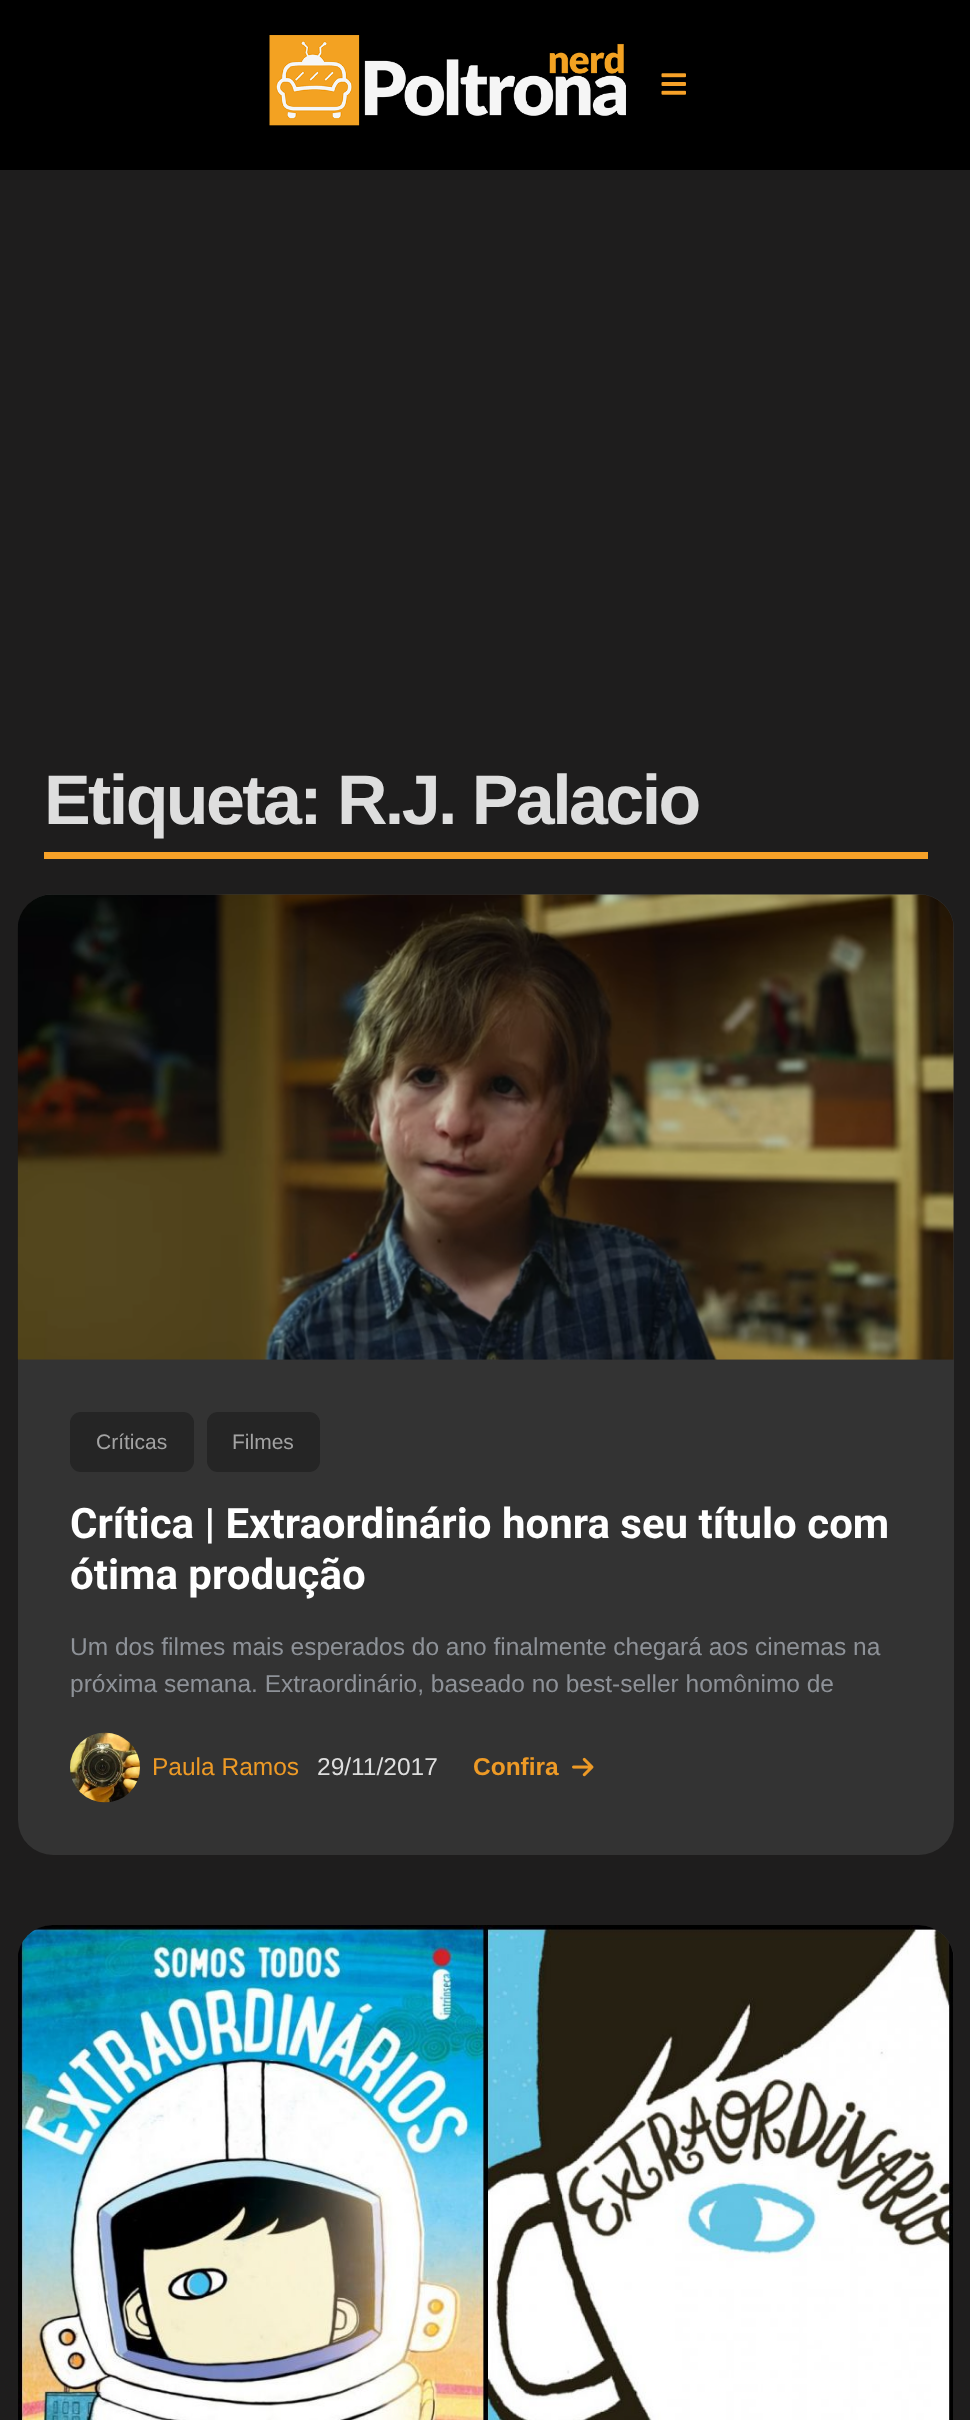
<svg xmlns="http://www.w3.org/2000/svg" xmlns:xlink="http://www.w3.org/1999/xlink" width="970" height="2420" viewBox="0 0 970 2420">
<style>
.cls-1{font:bold 70px Liberation Sans;letter-spacing:-2.6px;fill:#dedede}
.cls-2{font:21px Liberation Sans;fill:#a3a3a3}
.cls-3{font:bold 42px Roboto;fill:#ffffff}
.cls-4{font:24.5px Liberation Sans;fill:#8e9298}
.cls-5{font:24.5px Liberation Sans;fill:#ed9a26}
.cls-6{font:24.5px Liberation Sans;fill:#dedede}
.cls-7{font:bold 24.5px Liberation Sans;fill:#ed9a26}
</style>
<rect width="100%" height="100%" fill="#1e1d1d"/>
<rect fill="#000000" x="0" y="0" width="970" height="170"/>
<image xlink:href="image0.png" x="269" y="35" width="357" height="91"/>
<image xlink:href="image1.png" x="661" y="73" width="25" height="22"/>
<rect fill="#f6a128" x="44" y="852" width="884" height="7"/>
<rect fill="#333333" x="18" y="894" width="936" height="961" rx="35"/>
<image xlink:href="image2.png" x="17" y="894" width="937" height="466"/>
<rect fill="#252525" x="70" y="1412" width="124" height="60" rx="11"/>
<rect fill="#252525" x="207" y="1412" width="113" height="60" rx="11"/>
<image xlink:href="image3.png" x="70" y="1732" width="70" height="71"/>
<image xlink:href="image4.png" x="572" y="1757" width="22" height="20"/>
<rect fill="#333333" x="18" y="1925" width="936" height="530" rx="35"/>
<image xlink:href="image5.png" x="18" y="1925" width="936" height="495"/>
<text class="cls-1" x="44" y="824">Etiqueta: R.J. Palacio</text>
<text class="cls-2" x="96" y="1449">Críticas</text>
<text class="cls-2" x="232" y="1449">Filmes</text>
<text class="cls-3"><tspan x="70" y="1538">Crítica | Extraordinário honra seu título com</tspan><tspan x="70" y="1589">ótima produção</tspan></text>
<text class="cls-4"><tspan x="70" y="1655">Um dos filmes mais esperados do ano finalmente chegará aos cinemas na</tspan><tspan x="70" y="1692">próxima semana. Extraordinário, baseado no best-seller homônimo de</tspan></text>
<text class="cls-5" x="152" y="1775">Paula Ramos</text>
<text class="cls-6" x="317" y="1775">29/11/2017</text>
<text class="cls-7" x="473" y="1775">Confira</text>
</svg>
